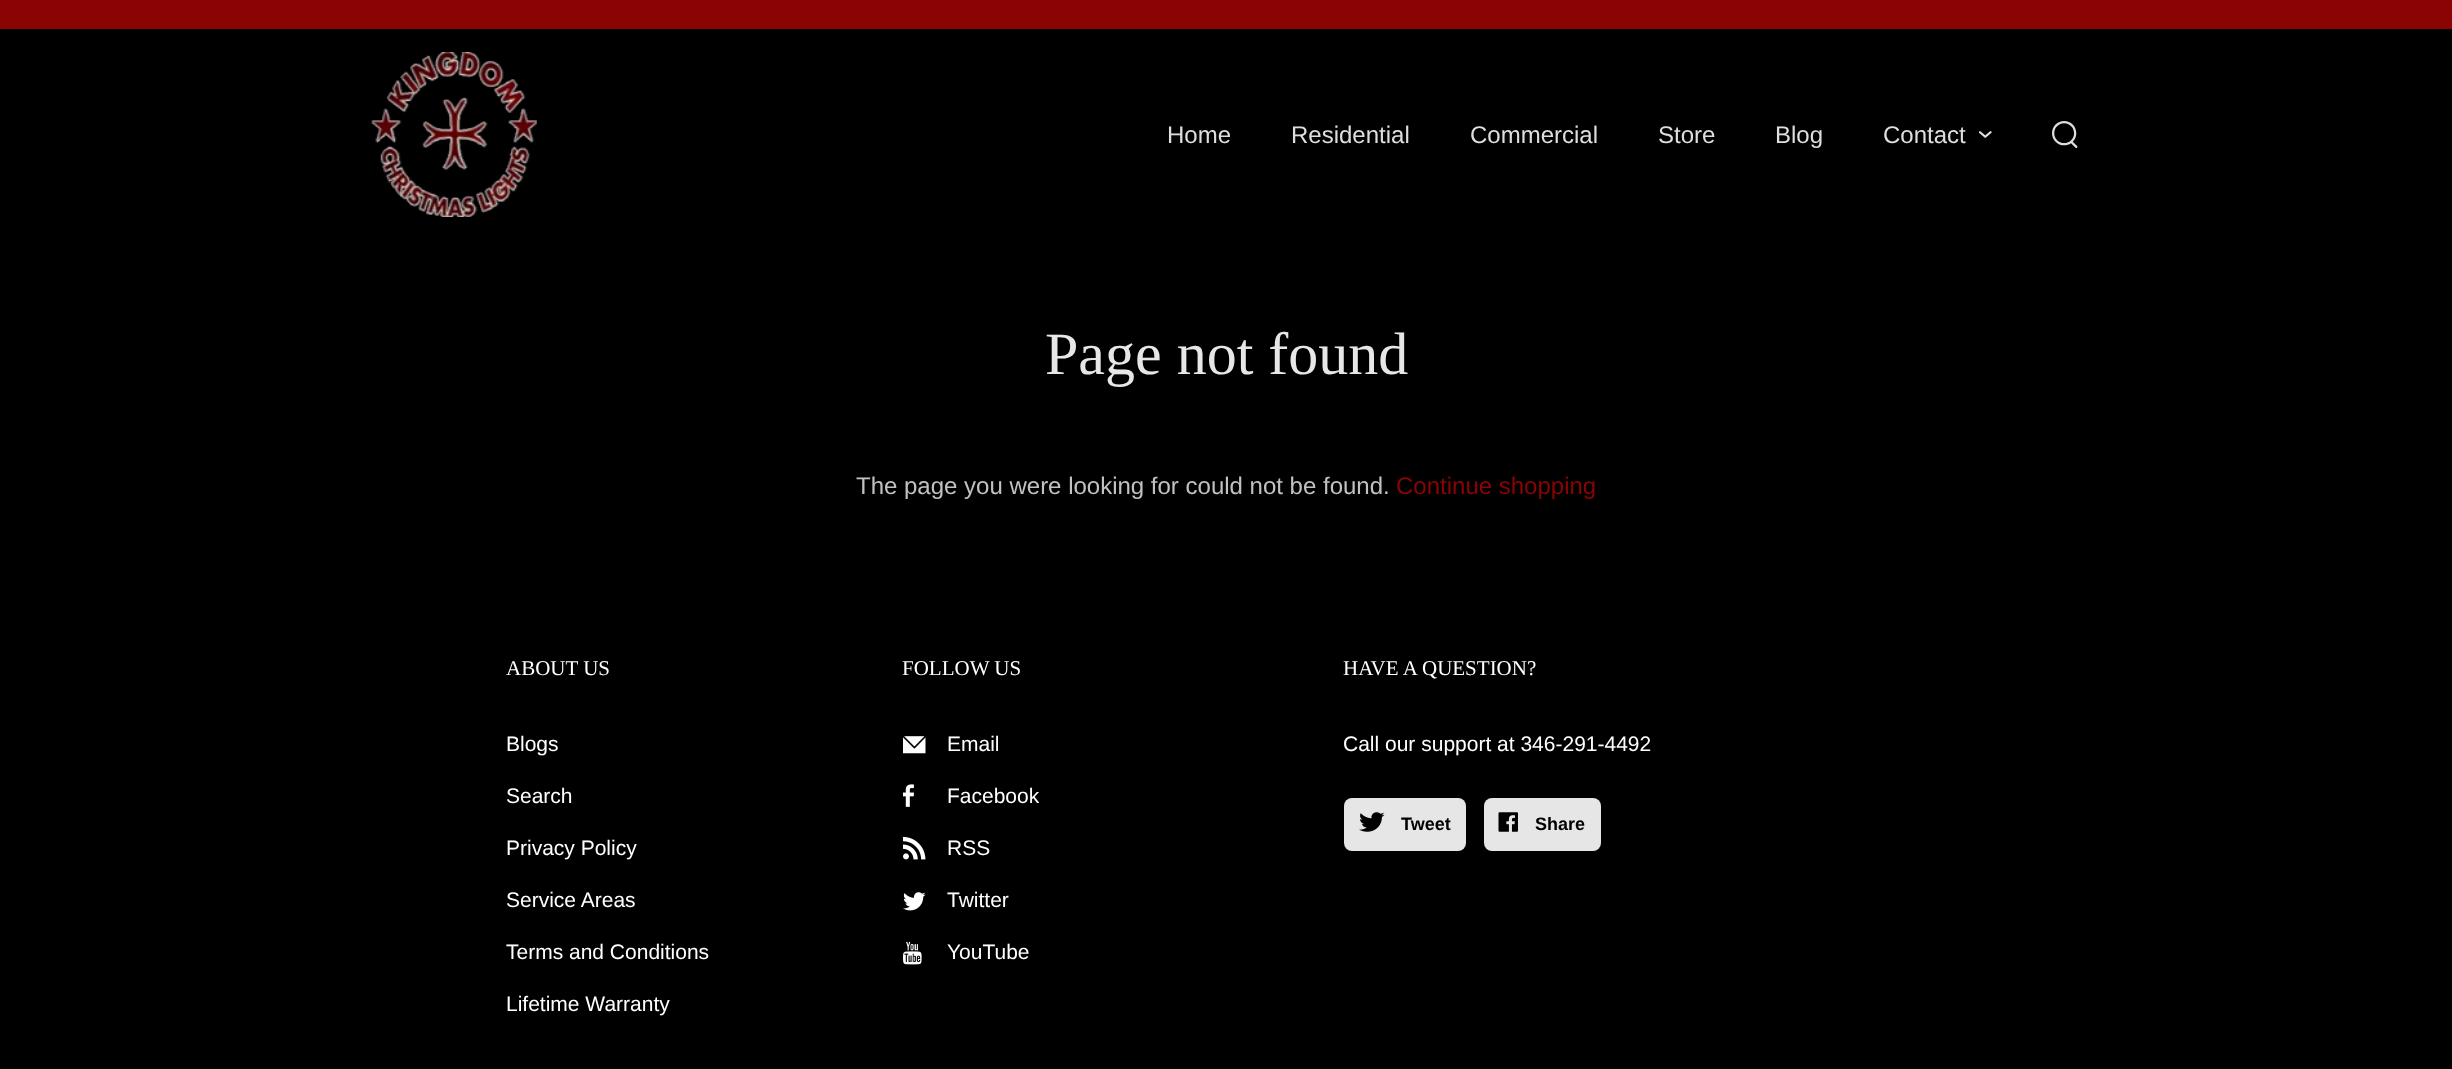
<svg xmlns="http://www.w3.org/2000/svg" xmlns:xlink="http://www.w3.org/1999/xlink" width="2452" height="1069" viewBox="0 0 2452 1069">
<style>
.cls-1{font:24px Liberation Sans;fill:#dedede}
.cls-2{font:60px Liberation Serif;fill:#e7e7e7}
.cls-3{font:24px Liberation Sans;fill:#c1c1c1}
.cls-4{font:24px Liberation Sans;fill:#8b0404}
.cls-5{font:21px Liberation Serif;fill:#ffffff}
.cls-6{font:21px Liberation Sans;fill:#ffffff}
.cls-7{font:bold 18px Liberation Sans;fill:#000000}
</style>
<rect width="100%" height="100%" fill="#000000"/>
<rect fill="#8b0404" x="0" y="0" width="2452" height="29"/>
<image xlink:href="image0.png" x="371" y="52" width="166" height="165"/>
<image xlink:href="image1.png" x="1979" y="131" width="13" height="7"/>
<image xlink:href="image2.png" x="2052" y="121" width="26" height="27"/>
<image xlink:href="image3.png" x="903" y="736" width="23" height="18"/>
<image xlink:href="image4.png" x="903" y="784" width="11" height="23"/>
<image xlink:href="image5.png" x="903" y="836" width="23" height="24"/>
<image xlink:href="image6.png" x="903" y="892" width="23" height="19"/>
<image xlink:href="image7.png" x="903" y="941" width="19" height="24"/>
<rect fill="#e6e6e6" x="1344" y="798" width="122" height="53" rx="8"/>
<image xlink:href="image8.png" x="1359" y="812" width="26" height="20"/>
<rect fill="#e6e6e6" x="1484" y="798" width="117" height="53" rx="8"/>
<image xlink:href="image9.png" x="1498" y="812" width="20" height="20"/>
<text class="cls-1" x="1167" y="143">Home</text>
<text class="cls-1" x="1291" y="143">Residential</text>
<text class="cls-1" x="1470" y="143">Commercial</text>
<text class="cls-1" x="1658" y="143">Store</text>
<text class="cls-1" x="1775" y="143">Blog</text>
<text class="cls-1" x="1883" y="143">Contact</text>
<text class="cls-2" x="1045" y="374">Page not found</text>
<text class="cls-3" x="856" y="494">The page you were looking for could not be found.</text>
<text class="cls-4" x="1396" y="494">Continue shopping</text>
<text class="cls-5" x="506" y="675">ABOUT US</text>
<text class="cls-6" x="506" y="751">Blogs</text>
<text class="cls-6" x="506" y="803">Search</text>
<text class="cls-6" x="506" y="855">Privacy Policy</text>
<text class="cls-6" x="506" y="907">Service Areas</text>
<text class="cls-6" x="506" y="959">Terms and Conditions</text>
<text class="cls-6" x="506" y="1011">Lifetime Warranty</text>
<text class="cls-5" x="902" y="675">FOLLOW US</text>
<text class="cls-6" x="947" y="751">Email</text>
<text class="cls-6" x="947" y="803">Facebook</text>
<text class="cls-6" x="947" y="855">RSS</text>
<text class="cls-6" x="947" y="907">Twitter</text>
<text class="cls-6" x="947" y="959">YouTube</text>
<text class="cls-5" x="1343" y="675">HAVE A QUESTION?</text>
<text class="cls-6" x="1343" y="751">Call our support at 346-291-4492</text>
<text class="cls-7" x="1401" y="830">Tweet</text>
<text class="cls-7" x="1535" y="830">Share</text>
</svg>
